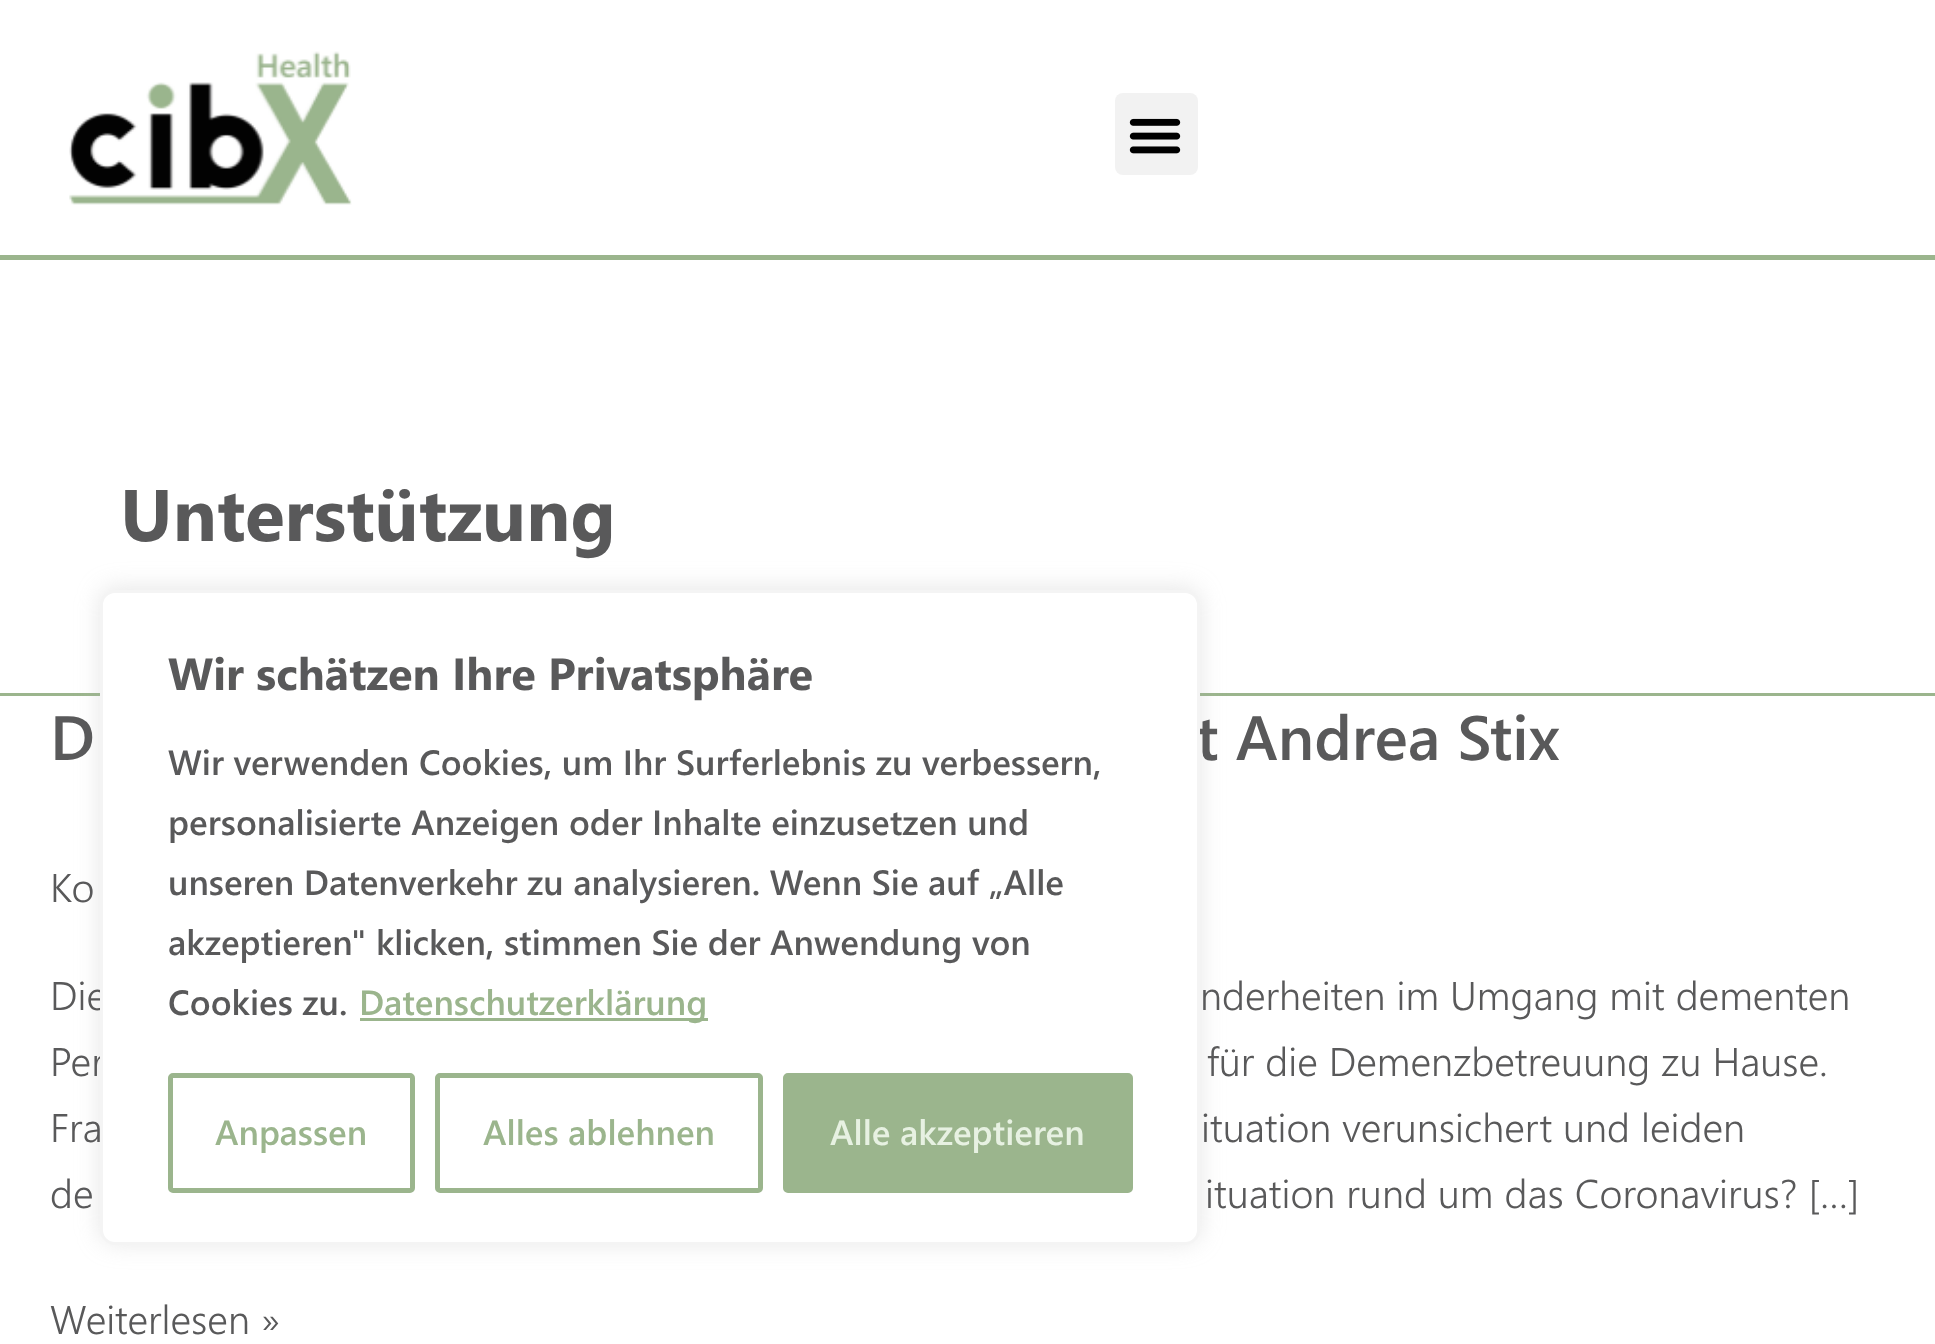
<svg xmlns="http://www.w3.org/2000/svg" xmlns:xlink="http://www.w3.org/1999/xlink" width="1935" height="1344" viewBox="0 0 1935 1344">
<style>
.cls-1{font:bold 73px Segoe UI;fill:#59595a}
.cls-2{font:600 62.5px Segoe UI;fill:#59595a}
.cls-3{font:300 40px Segoe UI;fill:#59595a}
.cls-4{font:bold 45px Segoe UI;fill:#59595a}
.cls-5{font:600 35px Segoe UI;fill:#59595a}
.cls-6{font:600 35px Segoe UI;fill:#9bb58d}
.cls-7{font:600 35px Segoe UI;fill:#e7f1e2}
</style>
<rect width="100%" height="100%" fill="#ffffff"/>
<rect fill="#9bb58d" x="0" y="255" width="1935" height="5"/>
<image xlink:href="image0.png" x="69" y="51" width="283" height="154"/>
<rect fill="#f2f2f2" x="1115" y="93" width="83" height="82" rx="8"/>
<image xlink:href="image1.png" x="1129" y="118" width="52" height="36"/>
<rect fill="#9bb58d" x="0" y="693" width="1935" height="3"/>
<rect fill="#acabab" fill-opacity="0.3" filter="blur(12.5px)" x="100" y="588" width="1100" height="655" rx="15"/>
<text class="cls-1" x="120" y="541">Unterstützung</text>
<text class="cls-2" x="50" y="760">D</text>
<text class="cls-2" x="1196" y="760">t Andrea Stix</text>
<text class="cls-3" x="50" y="902">Ko</text>
<text class="cls-3" x="50" y="1010">Die</text>
<text class="cls-3" x="1200" y="1010">nderheiten im Umgang mit dementen</text>
<text class="cls-3" x="50" y="1076">Per</text>
<text class="cls-3" x="1207" y="1076">für die Demenzbetreuung zu Hause.</text>
<text class="cls-3" x="50" y="1142">Fra</text>
<text class="cls-3" x="1201" y="1142">ituation verunsichert und leiden</text>
<text class="cls-3" x="50" y="1208">de</text>
<text class="cls-3" x="1205" y="1208">ituation rund um das Coronavirus? […]</text>
<text class="cls-3" x="50" y="1334">Weiterlesen »</text>
<rect fill="#ffffff" stroke="#f4f4f4" stroke-width="3" x="101.5" y="591.5" width="1097" height="652" rx="13.5"/>
<text class="cls-4" x="168" y="690">Wir schätzen Ihre Privatsphäre</text>
<text class="cls-5"><tspan x="168" y="775">Wir verwenden Cookies, um Ihr Surferlebnis zu verbessern,</tspan><tspan x="168" y="835">personalisierte Anzeigen oder Inhalte einzusetzen und</tspan><tspan x="168" y="895">unseren Datenverkehr zu analysieren. Wenn Sie auf „Alle</tspan><tspan x="168" y="955">akzeptieren" klicken, stimmen Sie der Anwendung von</tspan><tspan x="168" y="1015">Cookies zu.</tspan></text>
<rect fill="#9bb58d" x="360" y="1018" width="348" height="3"/>
<text class="cls-6" x="359" y="1015">Datenschutzerklärung</text>
<rect fill="none" stroke="#9bb58d" stroke-width="5" x="170.5" y="1075.5" width="242" height="115" rx="2.5"/>
<text class="cls-6" x="215" y="1145">Anpassen</text>
<rect fill="none" stroke="#9bb58d" stroke-width="5" x="437.5" y="1075.5" width="323" height="115" rx="2.5"/>
<text class="cls-6" x="483" y="1145">Alles ablehnen</text>
<rect fill="#9bb58d" stroke="#9bb58d" stroke-width="5" x="785.5" y="1075.5" width="345" height="115" rx="2.5"/>
<text class="cls-7" x="830" y="1145">Alle akzeptieren</text>
</svg>
